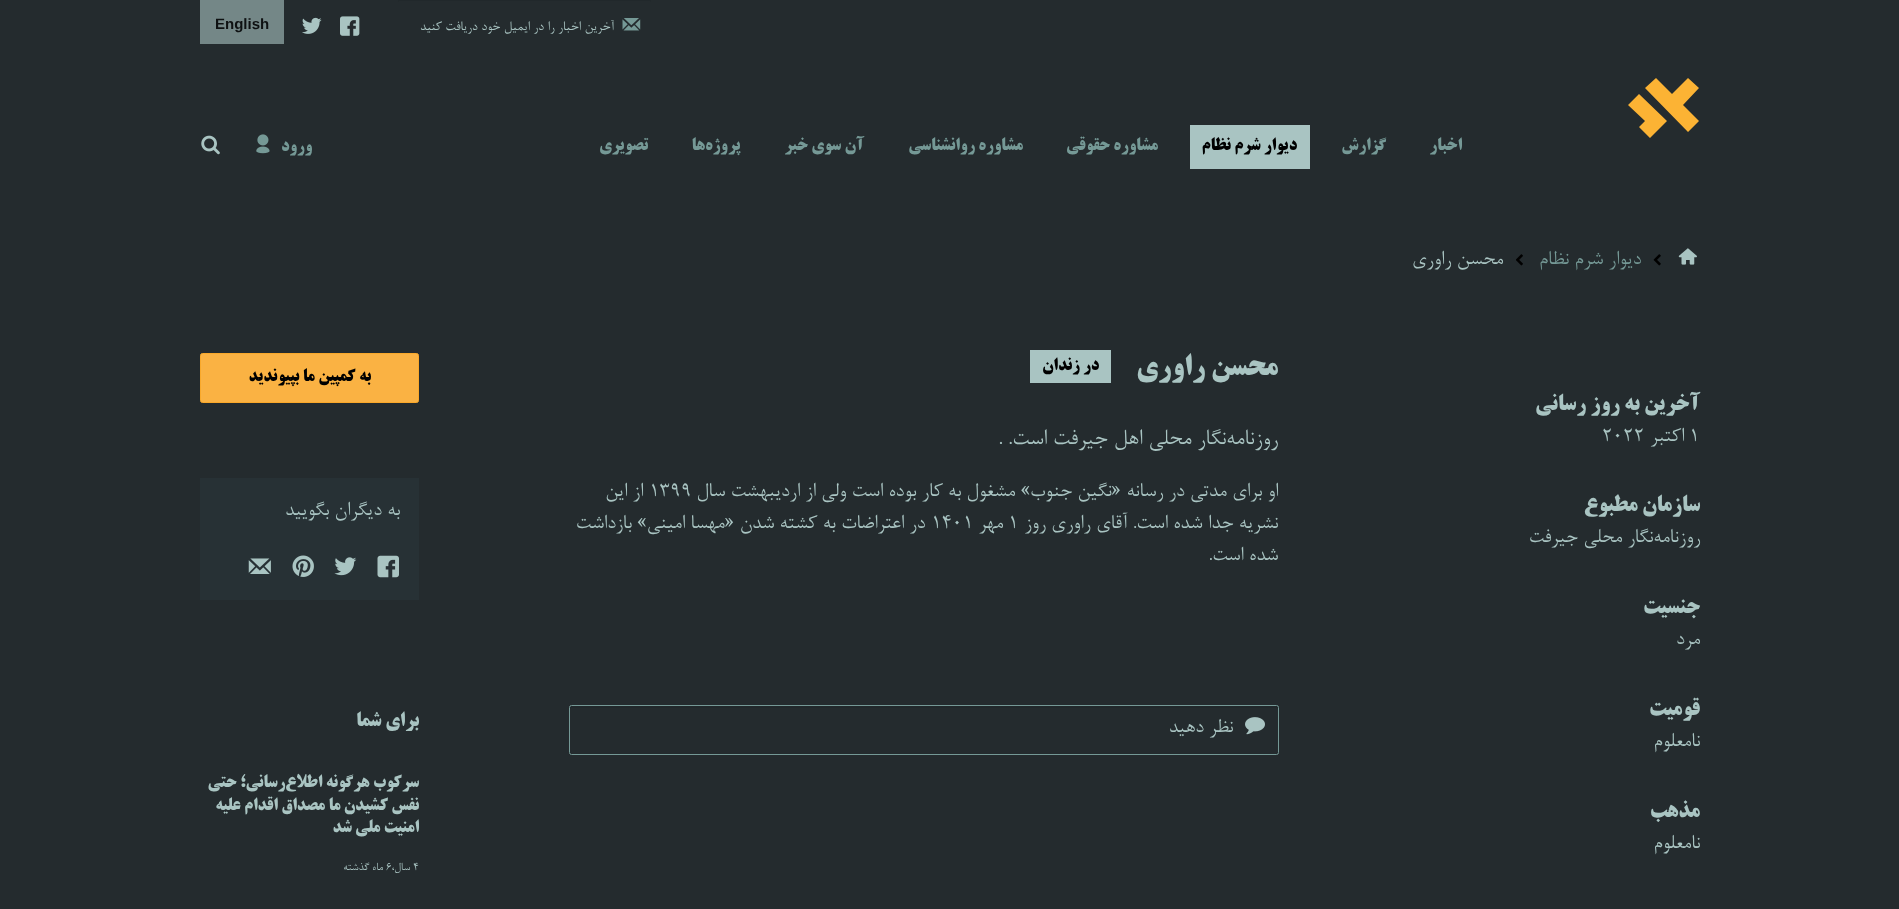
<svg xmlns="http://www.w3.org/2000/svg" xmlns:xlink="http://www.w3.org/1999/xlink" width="1899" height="909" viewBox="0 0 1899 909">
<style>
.cls-1{font:15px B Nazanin;direction:rtl;fill:#a9c4c2}
.cls-2{font:bold 15px Liberation Sans;fill:#0e1112}
.cls-3{font:bold 17.5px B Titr;direction:rtl;fill:#759996}
.cls-4{font:bold 17.5px B Titr;direction:rtl;fill:#000000}
.cls-5{font:22.5px B Nazanin;direction:rtl;fill:#759996}
.cls-6{font:22.5px B Nazanin;direction:rtl;fill:#a9c4c2}
.cls-7{font:bold 22.5px B Titr;direction:rtl;fill:#a9c4c2}
.cls-8{font:22.5px B Nazanin;fill:#a9c4c2}
.cls-9{font:bold 30px B Titr;direction:rtl;fill:#a9c4c2}
.cls-10{font:25px B Nazanin;direction:rtl;fill:#a9c4c2}
.cls-11{font:25px B Nazanin;fill:#a9c4c2}
.cls-12{font:bold 20px B Titr;direction:rtl;fill:#a9c4c2}
.cls-13{font:bold 17.5px B Titr;direction:rtl;fill:#a9c4c2}
.cls-14{font:12.5px B Nazanin;fill:#a9c4c2}
.cls-15{font:12.5px B Nazanin;direction:rtl;fill:#a9c4c2}
</style>
<defs>
<clipPath id="clip1"><rect x="413" y="20" width="201" height="15"/></clipPath>
</defs>
<rect width="100%" height="100%" fill="#242b2e"/>
<image xlink:href="image0.png" x="622" y="18" width="19" height="13"/>
<path fill="#21282b" d="M399 1H650L651 2V0H399C398 0 398 1 398 2Z"/>
<image xlink:href="image1.png" x="340" y="16" width="20" height="20"/>
<image xlink:href="image2.png" x="302" y="17" width="20" height="17"/>
<rect fill="#748787" x="200" y="0" width="84" height="44"/>
<path fill="#fcb334" d="M1628 105L1645 121L1639 127L1650 138L1667 121L1639 94ZM1688 78L1672 94L1656 78L1645 88L1688 132L1699 121L1683 105L1699 88Z"/>
<rect fill="#a9c4c2" x="1190" y="125" width="120" height="44"/>
<image xlink:href="image3.png" x="256" y="134" width="14" height="20"/>
<image xlink:href="image4.png" x="201" y="135" width="19" height="20"/>
<image xlink:href="image5.png" x="1678" y="248" width="19" height="17"/>
<image xlink:href="image6.png" x="1653" y="254" width="8" height="12"/>
<image xlink:href="image7.png" x="1516" y="254" width="7" height="12"/>
<rect fill="#a9c4c2" x="1030" y="350" width="81" height="33"/>
<path fill="#21282b" d="M571 708H1276C1277 708 1278 708 1278 709V707C1278 706 1278 706 1277 706H571C570 706 570 706 570 707V709Z"/>
<rect fill="none" stroke="#759996" x="569.5" y="705.5" width="709" height="49" rx="2"/>
<image xlink:href="image8.png" x="1245" y="717" width="20" height="18"/>
<rect fill="#fab243" stroke="#f9a82a" x="200.5" y="353.5" width="218" height="49" rx="2"/>
<rect fill="#273135" x="200" y="478" width="219" height="122"/>
<image xlink:href="image9.png" x="377" y="555" width="22" height="23"/>
<image xlink:href="image10.png" x="334" y="557" width="23" height="19"/>
<image xlink:href="image11.png" x="292" y="555" width="22" height="22"/>
<image xlink:href="image12.png" x="248" y="558" width="23" height="16"/>
<g clip-path="url(#clip1)">
<text class="cls-1" x="614" y="30">آخرین اخبار را در ایمیل خود دریافت کنید</text>
</g>
<text class="cls-2" x="215" y="29">English</text>
<text class="cls-3" x="1462" y="150">اخبار</text>
<text class="cls-3" x="1386" y="150">گزارش</text>
<text class="cls-4" x="1297" y="150">دیوار شرم نظام</text>
<text class="cls-3" x="1158" y="150">مشاوره حقوقی</text>
<text class="cls-3" x="1023" y="150">مشاوره روانشناسی</text>
<text class="cls-3" x="864" y="150">آن سوی خبر</text>
<text class="cls-3" x="740" y="150">پروژه‌ها</text>
<text class="cls-3" x="648" y="150">تصویری</text>
<text class="cls-3" x="312" y="151">ورود</text>
<text class="cls-5" x="1641" y="264">دیوار شرم نظام</text>
<text class="cls-6" x="1503" y="264">محسن راوری</text>
<text class="cls-7" x="1700" y="410">آخرین به روز رسانی</text>
<text class="cls-8" x="1689" y="441">1</text>
<text class="cls-6" x="1684" y="441">اکتبر</text>
<text class="cls-8" x="1602" y="441">2022</text>
<text class="cls-7" x="1700" y="511">سازمان مطبوع</text>
<text class="cls-6" x="1700" y="542">روزنامه‌نگار محلی جیرفت</text>
<text class="cls-7" x="1700" y="613">جنسیت</text>
<text class="cls-6" x="1700" y="644">مرد</text>
<text class="cls-7" x="1700" y="715">قومیت</text>
<text class="cls-6" x="1700" y="746">نامعلوم</text>
<text class="cls-7" x="1700" y="817">مذهب</text>
<text class="cls-6" x="1700" y="848">نامعلوم</text>
<text class="cls-9" x="1278" y="375">محسن راوری</text>
<text class="cls-4" x="1099" y="370">در زندان</text>
<text class="cls-10" x="1278" y="444">روزنامه‌نگار محلی اهل جیرفت است.</text>
<text class="cls-11" x="998" y="444">.</text>
<text class="cls-6" x="1278" y="496">او برای مدتی در رسانه «نگین جنوب» مشغول به کار بوده است ولی از اردیبهشت سال</text>
<text class="cls-8" x="649" y="496">۱۳۹۹</text>
<text class="cls-6" x="643" y="496">از این</text>
<text class="cls-6" x="1278" y="528">نشریه جدا شده است. آقای راوری روز</text>
<text class="cls-8" x="1008" y="528">۱</text>
<text class="cls-6" x="1003" y="528">مهر</text>
<text class="cls-8" x="931" y="528">۱۴۰۱</text>
<text class="cls-6" x="925" y="528">در اعتراضات به کشته شدن «مهسا امینی» بازداشت</text>
<text class="cls-6" x="1278" y="560">شده است.</text>
<text class="cls-6" x="1233" y="732">نظر دهید</text>
<text class="cls-4" x="371" y="381">به کمپین ما بپیوندید</text>
<text class="cls-6" x="400" y="515">به دیگران بگویید</text>
<text class="cls-12" x="419" y="726">برای شما</text>
<text class="cls-13"><tspan x="419" y="787">سرکوب هرگونه اطلاع‌رسانی؛ حتی</tspan><tspan x="419" y="810">نفس کشیدن ما مصداق اقدام علیه</tspan><tspan x="419" y="832">امنیت ملی شد</tspan></text>
<text class="cls-14" x="413" y="870">4</text>
<text class="cls-15" x="410" y="870">سال،</text>
<text class="cls-14" x="386" y="870">6</text>
<text class="cls-15" x="383" y="870">ماه گذشته</text>
</svg>
